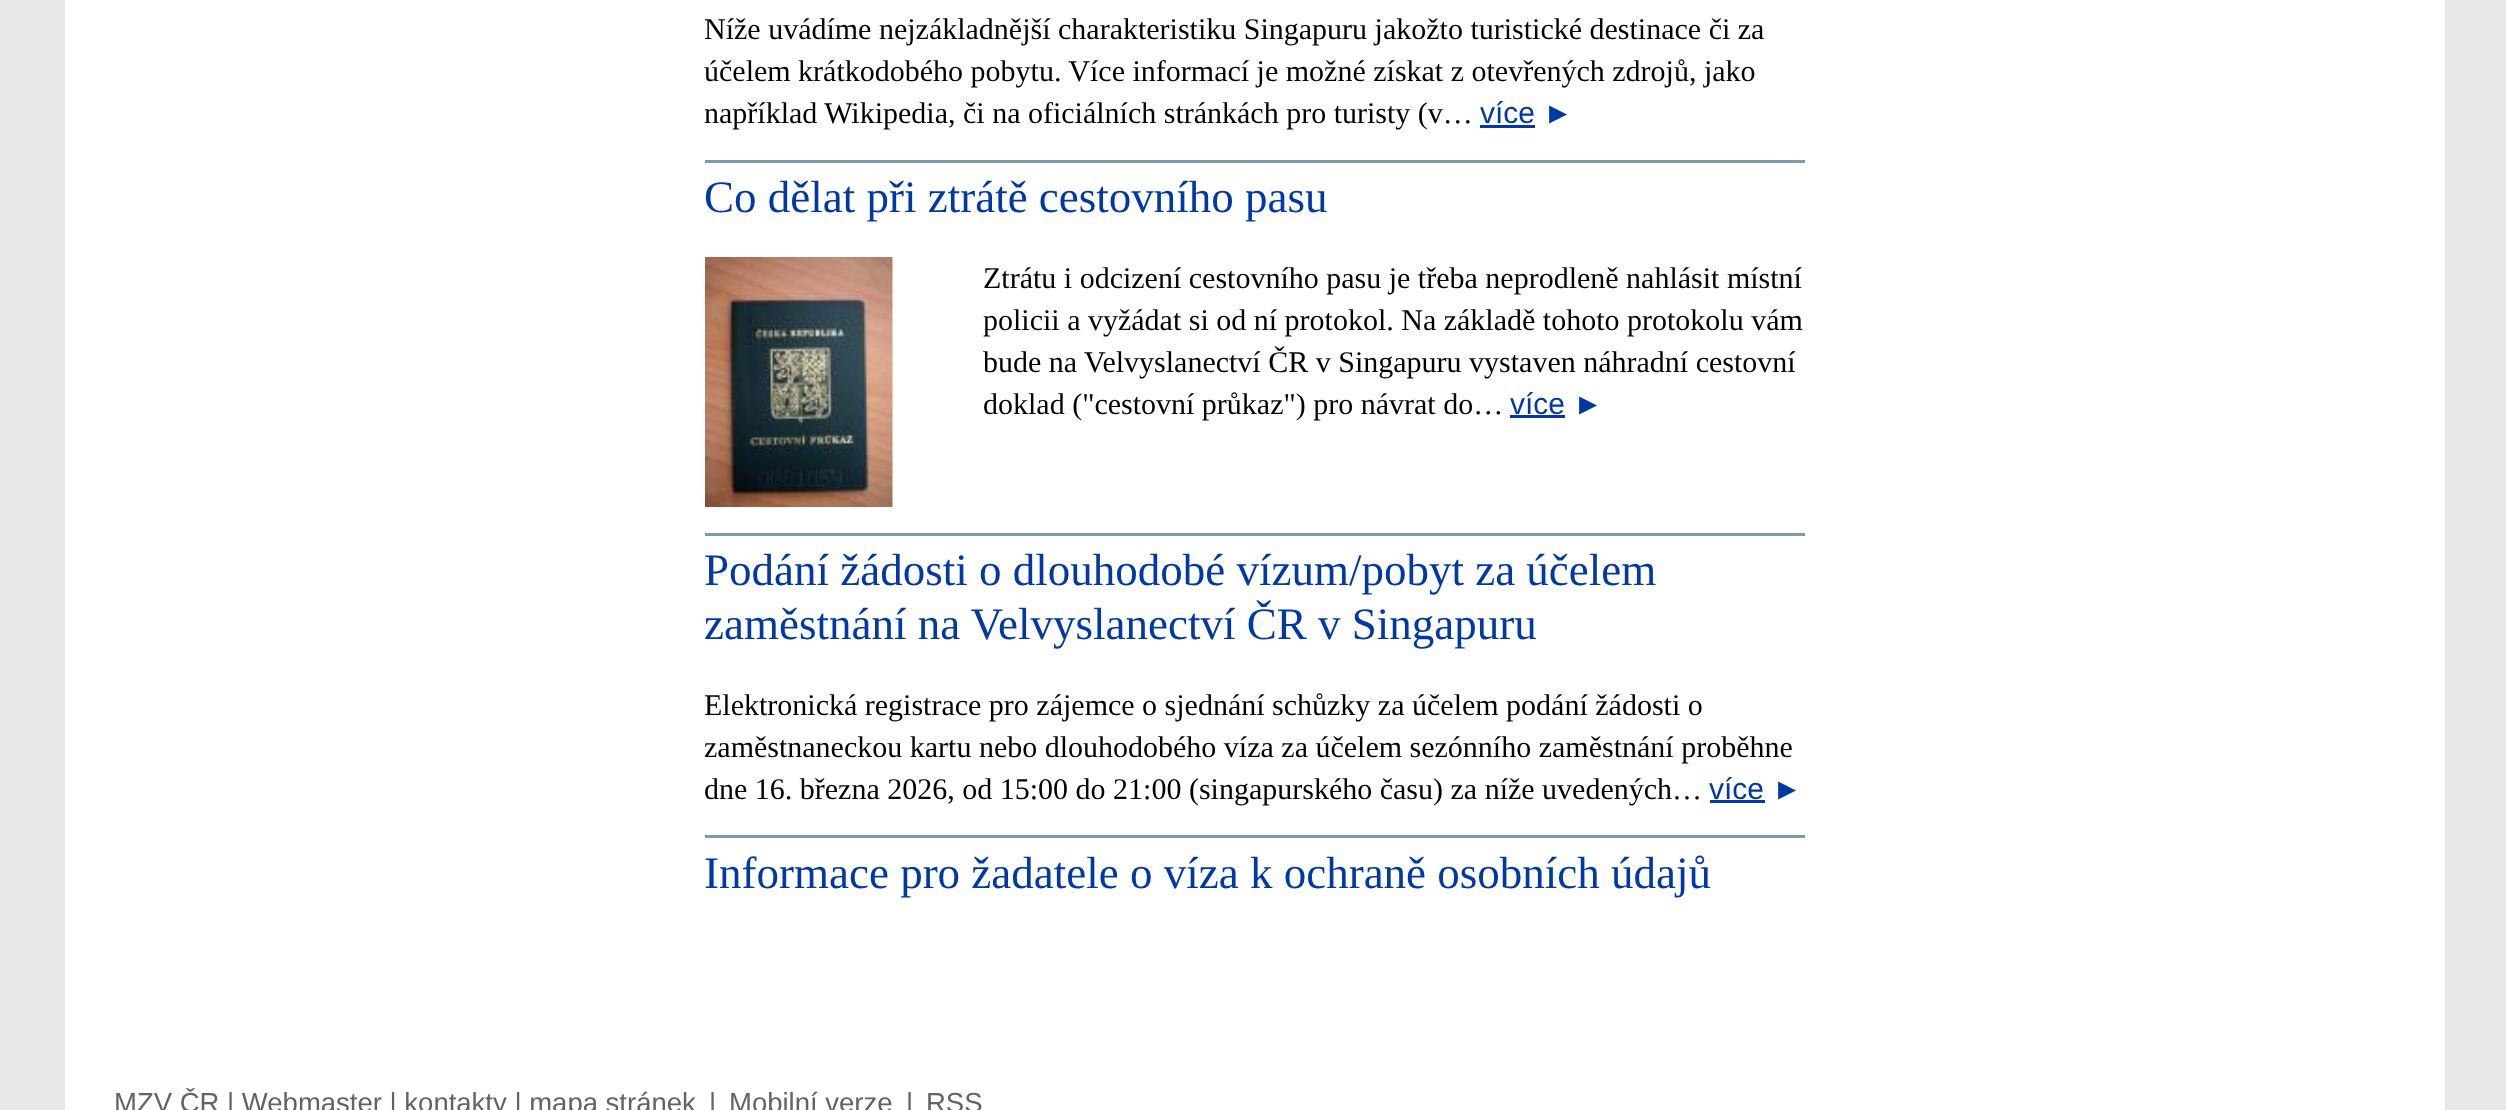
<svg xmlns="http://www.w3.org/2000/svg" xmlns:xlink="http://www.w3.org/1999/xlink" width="2506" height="1110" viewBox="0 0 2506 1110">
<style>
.cls-1{font:30px Liberation Serif;fill:#000000}
.cls-2{font:30px Liberation Sans;fill:#0039a6}
.cls-3{font:45px Liberation Serif;fill:#0039a6}
.cls-4{font:27.5px Liberation Sans;fill:#616365}
</style>
<defs>
<clipPath id="clip1"><rect x="705" y="0" width="1100" height="135"/></clipPath>
<clipPath id="clip2"><rect x="705" y="535" width="1100" height="275"/></clipPath>
</defs>
<rect width="100%" height="100%" fill="#e7e7e7"/>
<rect fill="#ffffff" x="65" y="0" width="2380" height="1110"/>
<rect fill="#0039a6" x="1480" y="125" width="55" height="3"/>
<rect fill="#7d9aaa" x="705" y="160" width="1100" height="3"/>
<image xlink:href="image0.png" x="705" y="257" width="188" height="250"/>
<rect fill="#0039a6" x="1510" y="415" width="55" height="3"/>
<rect fill="#7d9aaa" x="705" y="533" width="1100" height="3"/>
<rect fill="#0039a6" x="1710" y="800" width="55" height="3"/>
<rect fill="#7d9aaa" x="705" y="835" width="1100" height="3"/>
<g clip-path="url(#clip1)">
<text class="cls-1" x="704" y="39">Níže uvádíme nejzákladnější charakteristiku Singapuru jakožto turistické destinace či za</text>
</g>
<text class="cls-1"><tspan x="704" y="81">účelem krátkodobého pobytu. Více informací je možné získat z otevřených zdrojů, jako</tspan><tspan x="704" y="123">například Wikipedia, či na oficiálních stránkách pro turisty (v…</tspan></text>
<text class="cls-2" x="1480" y="123">více ►</text>
<text class="cls-3" x="704" y="212">Co dělat při ztrátě cestovního pasu</text>
<text class="cls-1"><tspan x="983" y="288">Ztrátu i odcizení cestovního pasu je třeba neprodleně nahlásit místní</tspan><tspan x="983" y="330">policii a vyžádat si od ní protokol. Na základě tohoto protokolu vám</tspan><tspan x="983" y="372">bude na Velvyslanectví ČR v Singapuru vystaven náhradní cestovní</tspan><tspan x="983" y="414">doklad ("cestovní průkaz") pro návrat do…</tspan></text>
<text class="cls-2" x="1510" y="414">více ►</text>
<text class="cls-3"><tspan x="704" y="585">Podání žádosti o dlouhodobé vízum/pobyt za účelem</tspan><tspan x="704" y="639">zaměstnání na Velvyslanectví ČR v Singapuru</tspan></text>
<g clip-path="url(#clip2)">
<text class="cls-1" x="704" y="715">Elektronická registrace pro zájemce o sjednání schůzky za účelem podání žádosti o</text>
</g>
<text class="cls-1" x="704" y="757">zaměstnaneckou kartu nebo dlouhodobého víza za účelem sezónního zaměstnání proběhne</text>
<g clip-path="url(#clip2)">
<text class="cls-1" x="704" y="799">dne 16. března 2026, od 15:00 do 21:00 (singapurského času) za níže uvedených…</text>
</g>
<text class="cls-2" x="1709" y="799">více ►</text>
<text class="cls-3" x="704" y="888">Informace pro žadatele o víza k ochraně osobních údajů</text>
<text class="cls-4" x="114" y="1112">MZV ČR | Webmaster | kontakty | mapa stránek</text>
<text class="cls-4" x="709" y="1112">|</text>
<text class="cls-4" x="729" y="1112">Mobilní verze</text>
<text class="cls-4" x="906" y="1112">|</text>
<text class="cls-4" x="926" y="1112">RSS</text>
</svg>
